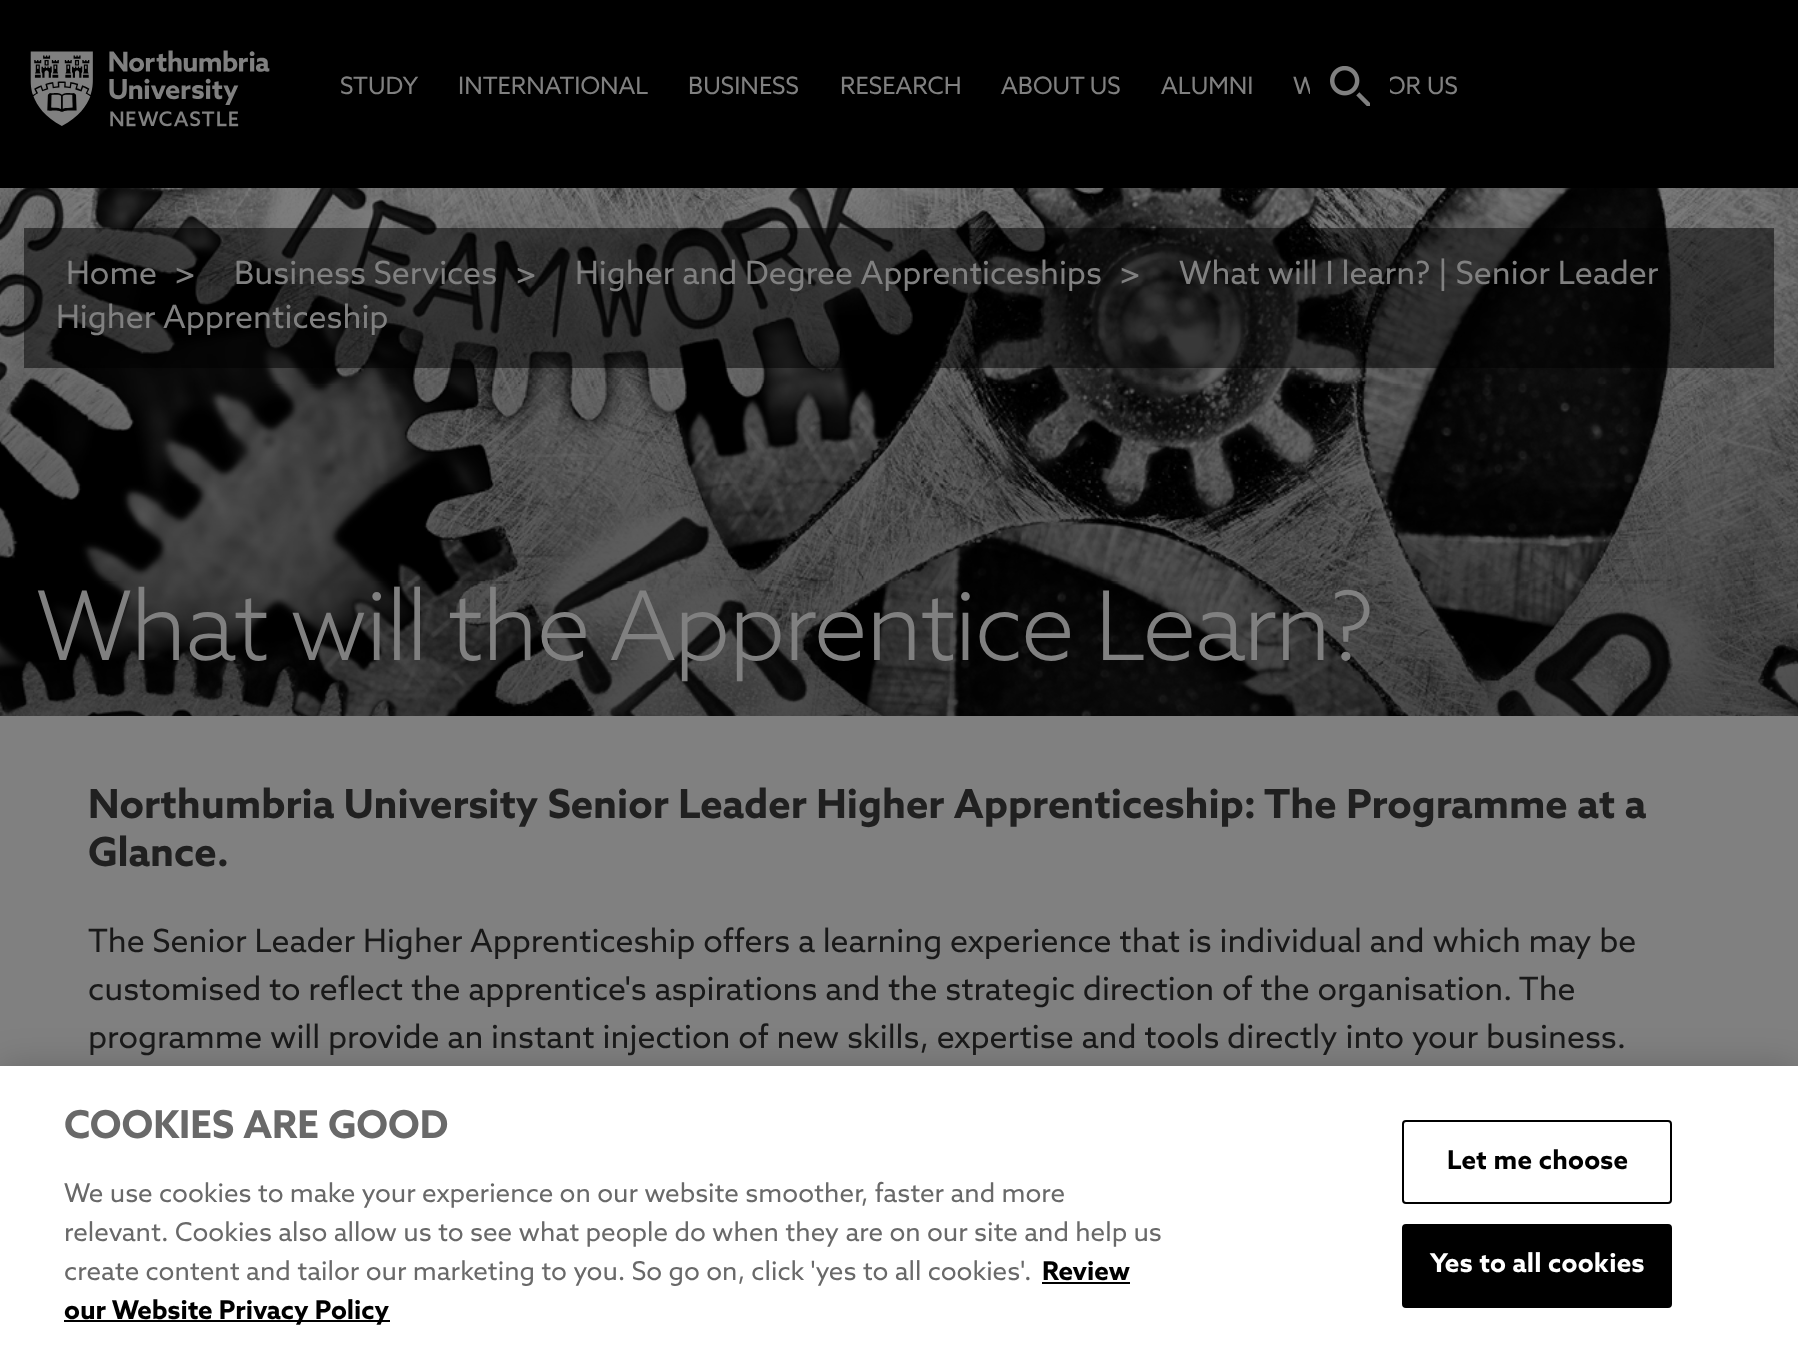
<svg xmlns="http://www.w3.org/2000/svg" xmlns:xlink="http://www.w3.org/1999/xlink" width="1798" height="1352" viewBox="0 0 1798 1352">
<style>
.cls-1{font:24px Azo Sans;fill:#808080}
.cls-2{font:32px Azo Sans;fill:#808080}
.cls-3{font:300 96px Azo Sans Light;letter-spacing:-2px;fill:#808080}
.cls-4{font:bold 40px Azo Sans;fill:#202020}
.cls-5{font:32px Azo Sans;fill:#191919}
.cls-6{font:bold 38.5px Azo Sans;fill:#696969}
.cls-7{font:26px Azo Sans;fill:#696969}
.cls-8{font:bold 26px Azo Sans;fill:#000000}
.cls-9{font:bold 26px Azo Sans;letter-spacing:0.25px;fill:#000000}
.cls-10{font:bold 26px Azo Sans;letter-spacing:0.25px;fill:#ffffff}
</style>
<rect width="100%" height="100%" fill="#ffffff"/>
<rect fill="#000000" x="0" y="0" width="1798" height="188"/>
<image xlink:href="image0.png" x="30" y="50" width="240" height="77"/>
<image xlink:href="image2.png" x="0" y="188" width="1798" height="528"/>
<rect fill="#000000" fill-opacity="0.5" x="24" y="228" width="1750" height="140"/>
<rect fill="#808080" x="0" y="716" width="1798" height="350"/>
<rect fill="#000000" fill-opacity="0.2" filter="blur(18px)" x="0" y="1066" width="1798" height="286"/>
<rect fill="#ffffff" x="0" y="1066" width="1798" height="286"/>
<rect fill="#000000" x="1042" y="1282" width="88" height="2"/>
<rect fill="#000000" x="64" y="1320" width="326" height="2"/>
<rect fill="none" stroke="#000000" stroke-width="2" x="1403" y="1121" width="268" height="82" rx="3"/>
<rect fill="#000000" stroke="#000000" stroke-width="2" x="1403" y="1225" width="268" height="82" rx="3"/>
<text class="cls-1" x="340" y="94">STUDY</text>
<text class="cls-1" x="458" y="94">INTERNATIONAL</text>
<text class="cls-1" x="688" y="94">BUSINESS</text>
<text class="cls-1" x="840" y="94">RESEARCH</text>
<text class="cls-1" x="1001" y="94">ABOUT US</text>
<text class="cls-1" x="1161" y="94">ALUMNI</text>
<text class="cls-1" x="1293" y="94">W</text>
<text class="cls-1" x="1386" y="94">OR US</text>
<rect fill="#000000" x="1310" y="76" width="80" height="18"/>
<image xlink:href="image1.png" x="1330" y="66" width="40" height="40"/>
<text class="cls-2" x="66" y="284">Home</text>
<text class="cls-2" x="174" y="284">&gt;</text>
<text class="cls-2" x="234" y="284">Business Services</text>
<text class="cls-2" x="515" y="284">&gt;</text>
<text class="cls-2" x="575" y="284">Higher and Degree Apprenticeships</text>
<text class="cls-2" x="1119" y="284">&gt;</text>
<text class="cls-2" x="1179" y="284">What will I learn? | Senior Leader</text>
<text class="cls-2" x="56" y="328">Higher Apprenticeship</text>
<text class="cls-3" x="36" y="660">What will the Apprentice Learn?</text>
<text class="cls-4"><tspan x="88" y="818">Northumbria University Senior Leader Higher Apprenticeship: The Programme at a</tspan><tspan x="88" y="866">Glance.</tspan></text>
<text class="cls-5"><tspan x="88" y="952">The Senior Leader Higher Apprenticeship offers a learning experience that is individual and which may be</tspan><tspan x="88" y="1000">customised to reflect the apprentice's aspirations and the strategic direction of the organisation. The</tspan><tspan x="88" y="1048">programme will provide an instant injection of new skills, expertise and tools directly into your business.</tspan></text>
<text class="cls-6" x="64" y="1138">COOKIES ARE GOOD</text>
<text class="cls-7"><tspan x="64" y="1202">We use cookies to make your experience on our website smoother, faster and more</tspan><tspan x="64" y="1241">relevant. Cookies also allow us to see what people do when they are on our site and help us</tspan><tspan x="64" y="1280">create content and tailor our marketing to you. So go on, click 'yes to all cookies'.</tspan></text>
<text class="cls-8" x="1042" y="1280">Review</text>
<text class="cls-8" x="64" y="1319">our Website Privacy Policy</text>
<text class="cls-9" x="1447" y="1169">Let me choose</text>
<text class="cls-10" x="1430" y="1272">Yes to all cookies</text>
</svg>
